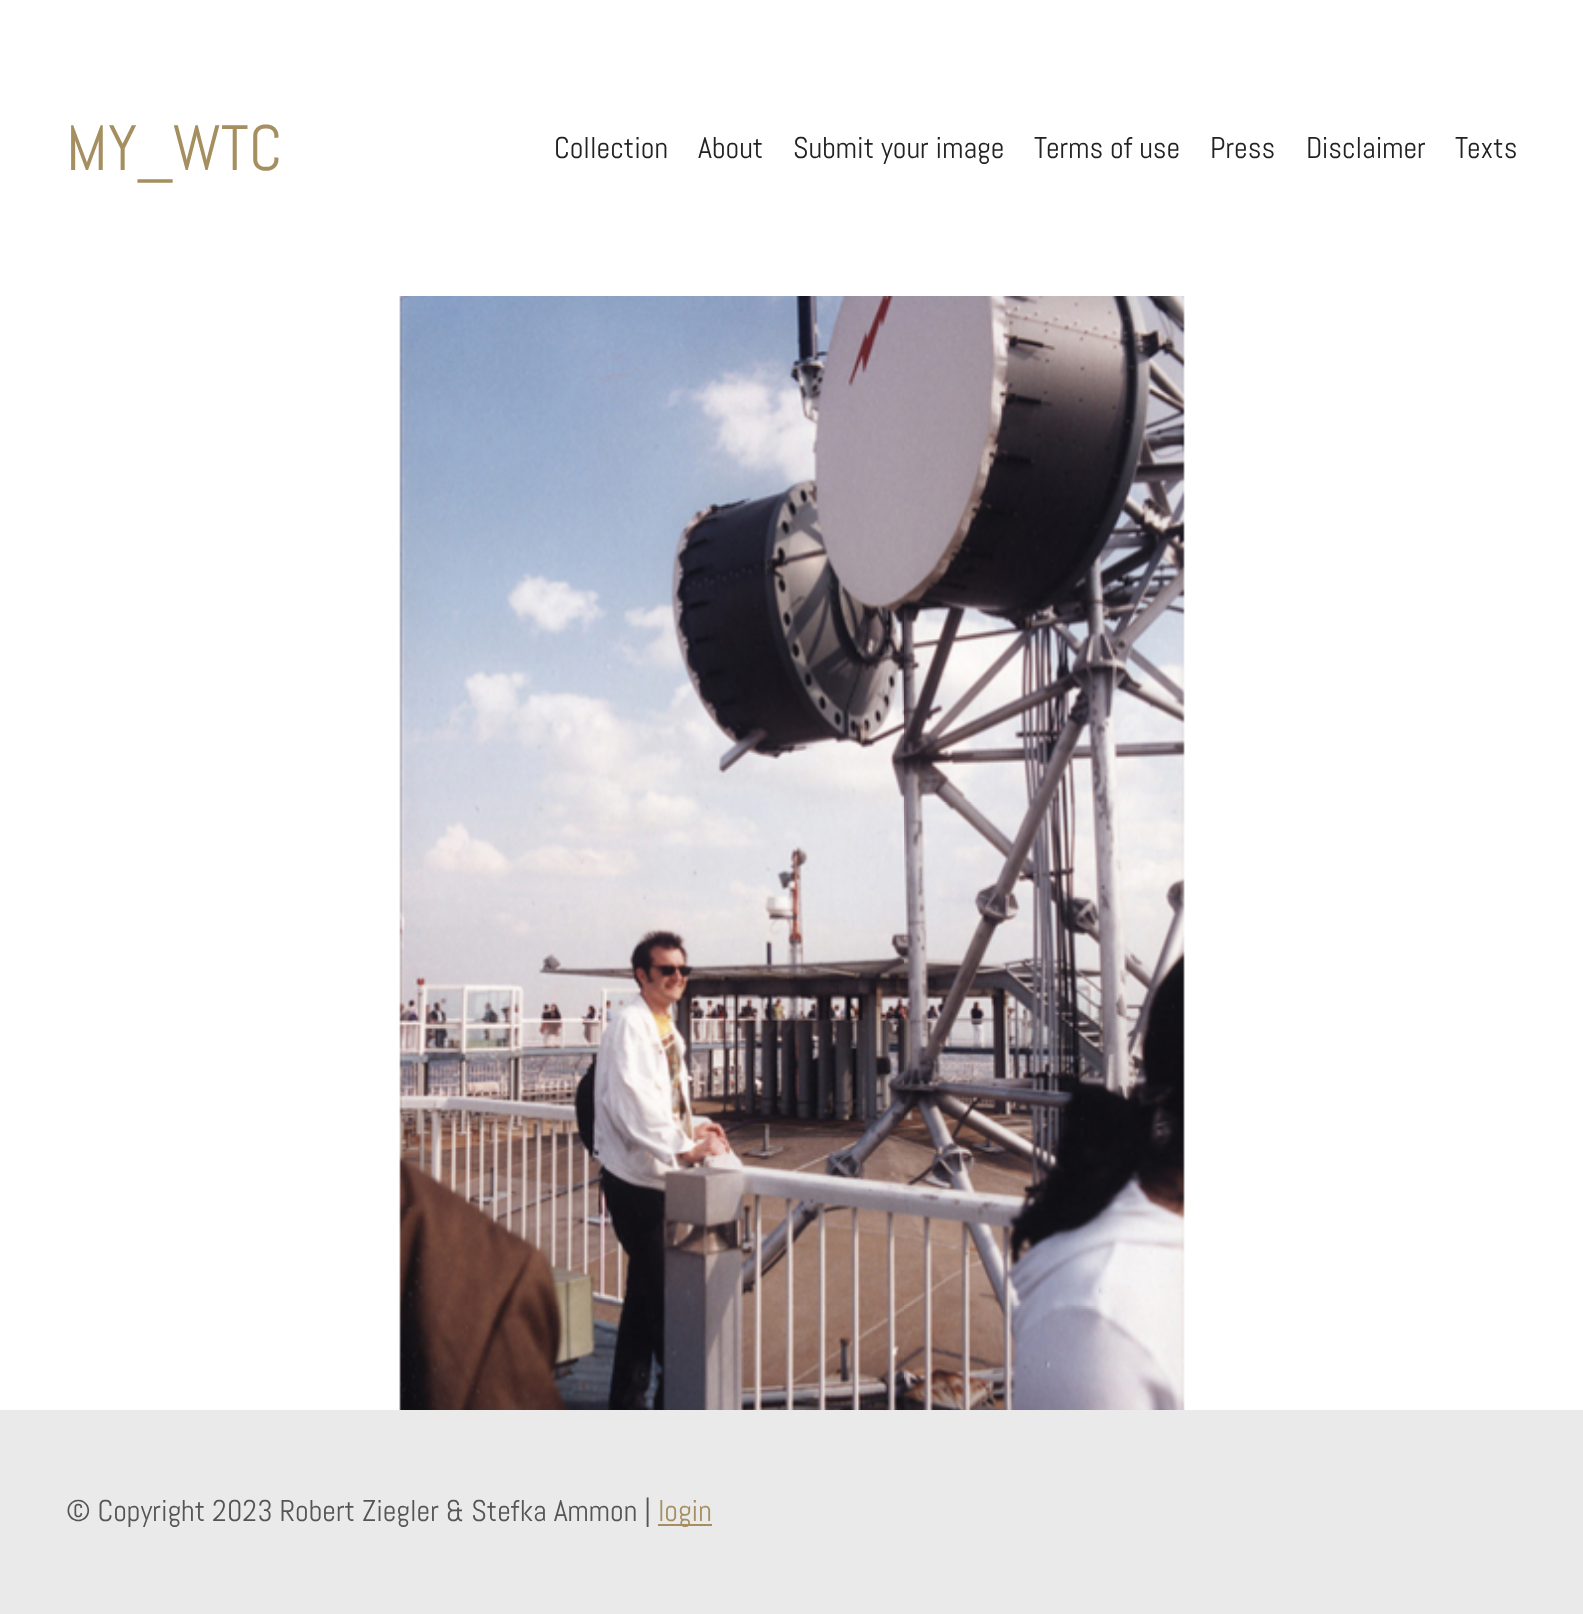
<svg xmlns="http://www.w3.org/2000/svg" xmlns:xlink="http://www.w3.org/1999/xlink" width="1583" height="1614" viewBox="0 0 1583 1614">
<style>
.cls-1{font:64px Abel;fill:#a58f60}
.cls-2{font:30px Abel;fill:#222222}
.cls-3{font:30px Abel;fill:#555555}
.cls-4{font:30px Abel;fill:#a58f60}
</style>
<rect width="100%" height="100%" fill="#ffffff"/>
<image xlink:href="image0.png" x="399" y="296" width="786" height="1114"/>
<rect fill="#eaeaea" x="0" y="1410" width="1583" height="204"/>
<rect fill="#a58f60" x="658" y="1524" width="54" height="2"/>
<text class="cls-1" x="66" y="170">MY_WTC</text>
<text class="cls-2" x="554" y="158">Collection</text>
<text class="cls-2" x="698" y="158">About</text>
<text class="cls-2" x="793" y="158">Submit your image</text>
<text class="cls-2" x="1034" y="158">Terms of use</text>
<text class="cls-2" x="1210" y="158">Press</text>
<text class="cls-2" x="1306" y="158">Disclaimer</text>
<text class="cls-2" x="1455" y="158">Texts</text>
<text class="cls-3" x="66" y="1521">© Copyright 2023 Robert Ziegler &amp; Stefka Ammon |</text>
<text class="cls-4" x="658" y="1521">login</text>
</svg>
